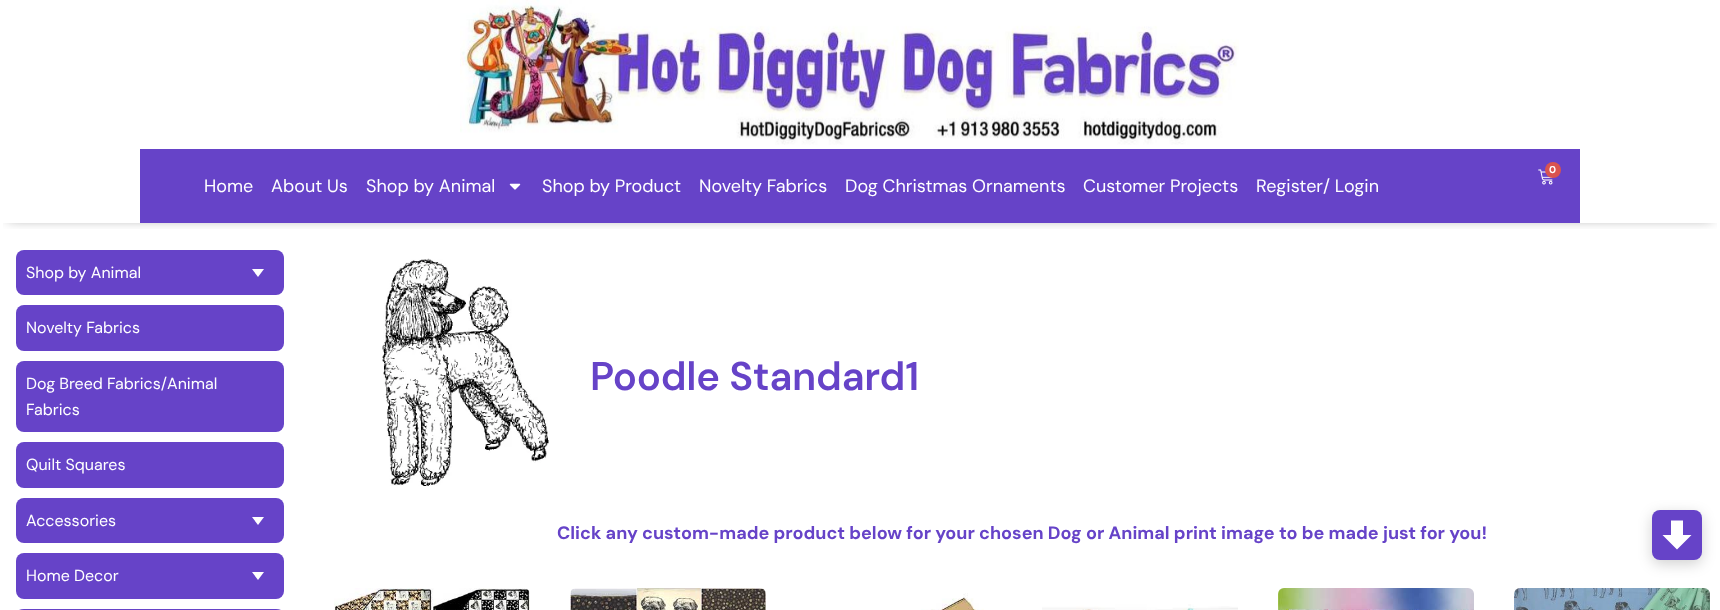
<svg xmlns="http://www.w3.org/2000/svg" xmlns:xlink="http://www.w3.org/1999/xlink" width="1720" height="610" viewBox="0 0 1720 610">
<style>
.cls-1{font:bold 10px DM Sans;fill:#ffffff}
.cls-2{font:18px DM Sans;fill:#ffffff}
.cls-3{font:16px DM Sans;fill:#ffffff}
.cls-4{font:600 40px DM Sans;letter-spacing:-0.25px;fill:#6643c8}
.cls-5{font:bold 18px DM Sans;fill:#6643c8}
</style>
<defs>
<clipPath id="clip1"><rect x="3" y="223" width="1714" height="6"/></clipPath>
</defs>
<rect width="100%" height="100%" fill="#ffffff"/>
<g clip-path="url(#clip1)">
<rect fill="#000000" fill-opacity="0.5" filter="blur(6.5px)" x="8" y="11" width="1704" height="207"/>
</g>
<image xlink:href="image0.png" x="460" y="0" width="779" height="145"/>
<rect fill="#6643c8" x="140" y="149" width="1440" height="74"/>
<image xlink:href="image1.png" x="1538" y="169" width="15" height="16"/>
<circle fill="#d9534f" cx="1553" cy="170" r="8"/>
<image xlink:href="image2.png" x="509" y="183" width="12" height="7"/>
<rect fill="#6643c8" x="16" y="250" width="268" height="45" rx="8"/>
<path fill="#ffffff" d="M252 269H264L258 277Z"/>
<rect fill="#6643c8" x="16" y="305" width="268" height="46" rx="8"/>
<rect fill="#6643c8" x="16" y="361" width="268" height="71" rx="8"/>
<rect fill="#6643c8" x="16" y="442" width="268" height="46" rx="8"/>
<rect fill="#6643c8" x="16" y="498" width="268" height="45" rx="8"/>
<rect fill="#6643c8" x="16" y="553" width="268" height="46" rx="8"/>
<path fill="#ffffff" d="M252 517H264L258 525ZM252 572H264L258 580Z"/>
<rect fill="#6643c8" x="16" y="609" width="268" height="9" rx="8"/>
<image xlink:href="image3.png" x="382" y="258" width="168" height="228"/>
<image xlink:href="image4.png" x="334" y="588" width="196" height="22"/>
<image xlink:href="image5.png" x="570" y="588" width="196" height="22"/>
<image xlink:href="image6.png" x="921" y="593" width="63" height="17"/>
<image xlink:href="image7.png" x="1042" y="604" width="196" height="6"/>
<image xlink:href="image8.png" x="1278" y="588" width="196" height="22"/>
<image xlink:href="image9.png" x="1514" y="588" width="196" height="22"/>
<rect fill="#000000" fill-opacity="0.18" filter="blur(7px)" x="1652" y="514" width="50" height="50" rx="8"/>
<rect fill="#6643c8" x="1652" y="510" width="50" height="50" rx="8"/>
<path fill="#ffffff" d="M1677 549.5L1691.5 535H1683V520.5H1671V535H1662.5Z"/>
<text class="cls-1" x="1549" y="173">0</text>
<text class="cls-2" x="204" y="192">Home</text>
<text class="cls-2" x="271" y="192">About Us</text>
<text class="cls-2" x="366" y="192">Shop by Animal</text>
<text class="cls-2" x="542" y="192">Shop by Product</text>
<text class="cls-2" x="699" y="192">Novelty Fabrics</text>
<text class="cls-2" x="845" y="192">Dog Christmas Ornaments</text>
<text class="cls-2" x="1083" y="192">Customer Projects</text>
<text class="cls-2" x="1256" y="192">Register/ Login</text>
<text class="cls-3" x="26" y="278">Shop by Animal</text>
<text class="cls-3" x="26" y="333">Novelty Fabrics</text>
<text class="cls-3"><tspan x="26" y="389">Dog Breed Fabrics/Animal</tspan><tspan x="26" y="415">Fabrics</tspan></text>
<text class="cls-3" x="26" y="470">Quilt Squares</text>
<text class="cls-3" x="26" y="526">Accessories</text>
<text class="cls-3" x="26" y="581">Home Decor</text>
<text class="cls-4" x="590" y="390">Poodle Standard1</text>
<text class="cls-5" x="557" y="539">Click any custom-made product below for your chosen Dog or Animal print image to be made just for you!</text>
</svg>
